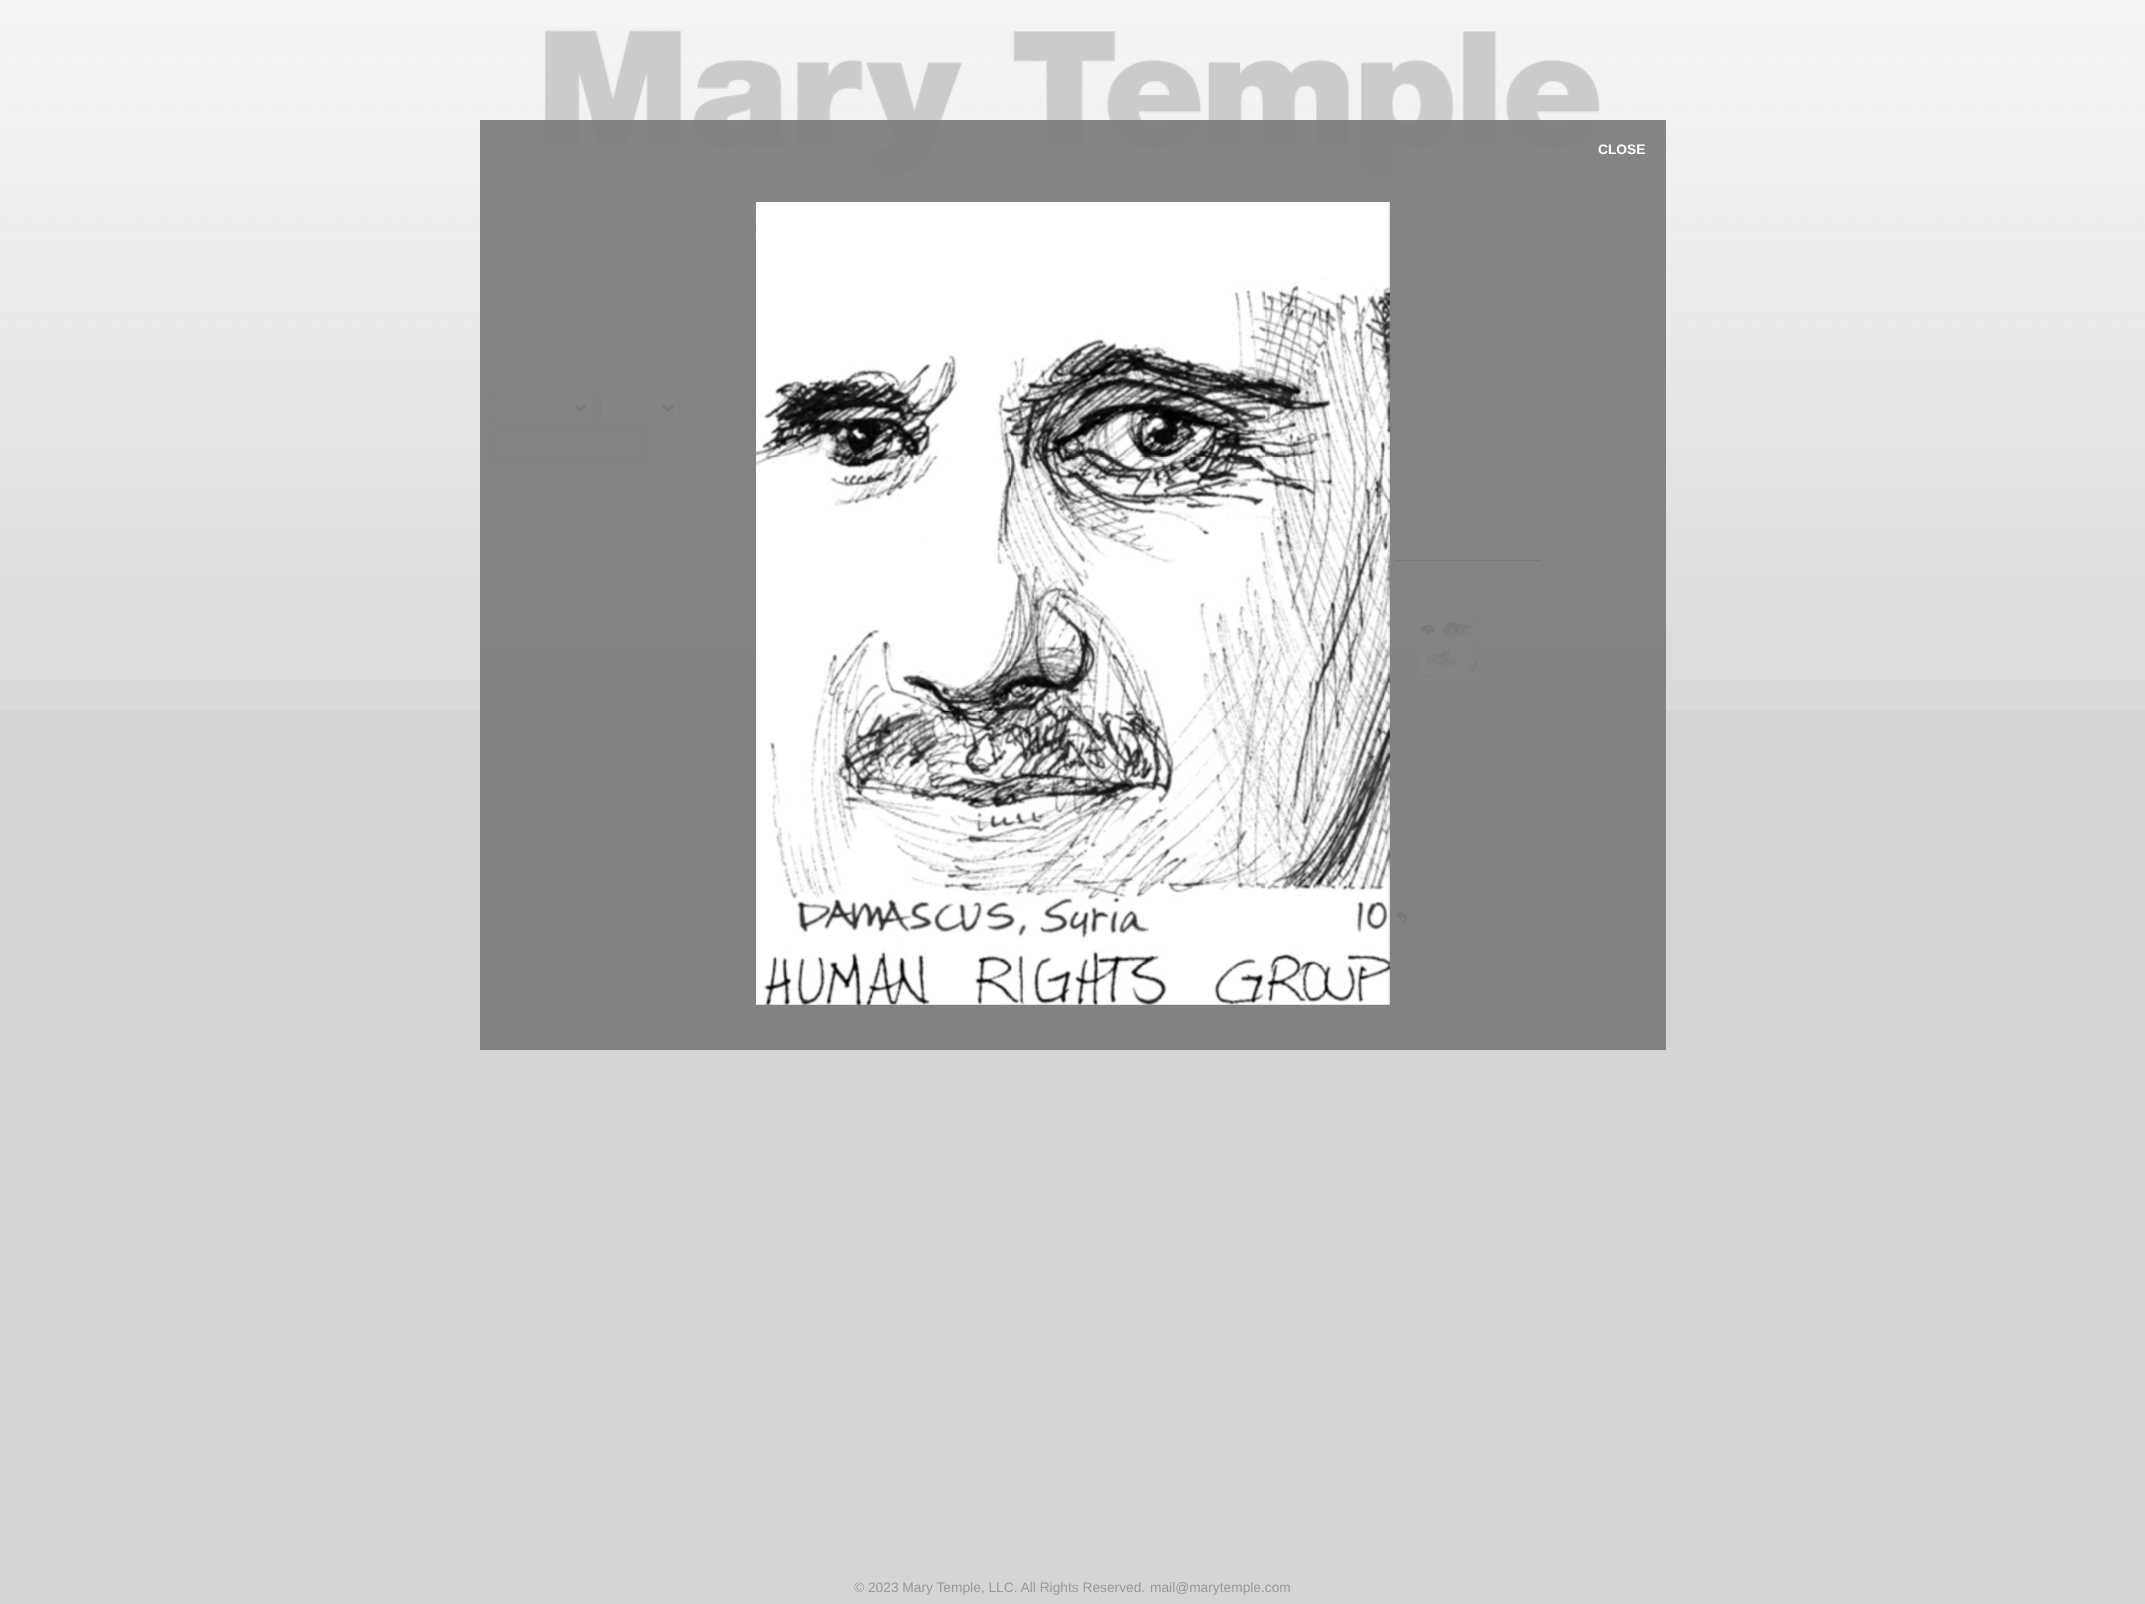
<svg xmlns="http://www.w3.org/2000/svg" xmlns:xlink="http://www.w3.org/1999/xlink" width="2145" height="1604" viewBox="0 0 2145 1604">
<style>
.cls-1{font:bold 13.75px Liberation Sans;fill:#ffffff}
.cls-2{font:13.75px Liberation Sans;fill:#999999}
</style>
<rect width="100%" height="100%" fill="#d5d5d5"/>
<image xlink:href="image0.png" x="0" y="0" width="2145" height="710"/>
<image xlink:href="image1.png" x="545" y="30" width="1055" height="144"/>
<rect fill="#000000" x="1395" y="560" width="146" height="1"/>
<image xlink:href="image3.png" x="1418" y="608" width="60" height="76"/>
<image xlink:href="image4.png" x="1396" y="909" width="12" height="17"/>
<rect fill="#f4f4f4" stroke="#a9a9a9" x="493.5" y="394.5" width="99" height="26"/>
<path fill="none" stroke="#000000" stroke-width="2.5" d="M575.5 405.5L580.5 410.5L585.5 405.5"/>
<rect fill="#f4f4f4" stroke="#a9a9a9" x="600.5" y="394.5" width="79" height="26"/>
<path fill="none" stroke="#000000" stroke-width="2.5" d="M663 405.5L668 410.5L673 405.5"/>
<rect fill="none" stroke="#a9a9a9" x="493.5" y="431.5" width="151" height="27"/>
<rect fill="#7d7d7d" fill-opacity="0.95" x="480" y="120" width="1186" height="930"/>
<image xlink:href="image2.png" x="756" y="202" width="634" height="803"/>
<text class="cls-1" x="1598" y="154">CLOSE</text>
<text class="cls-2" x="854" y="1592">© 2023 Mary Temple, LLC. All Rights Reserved.</text>
<text class="cls-2" x="1150" y="1592">mail@marytemple.com</text>
</svg>
